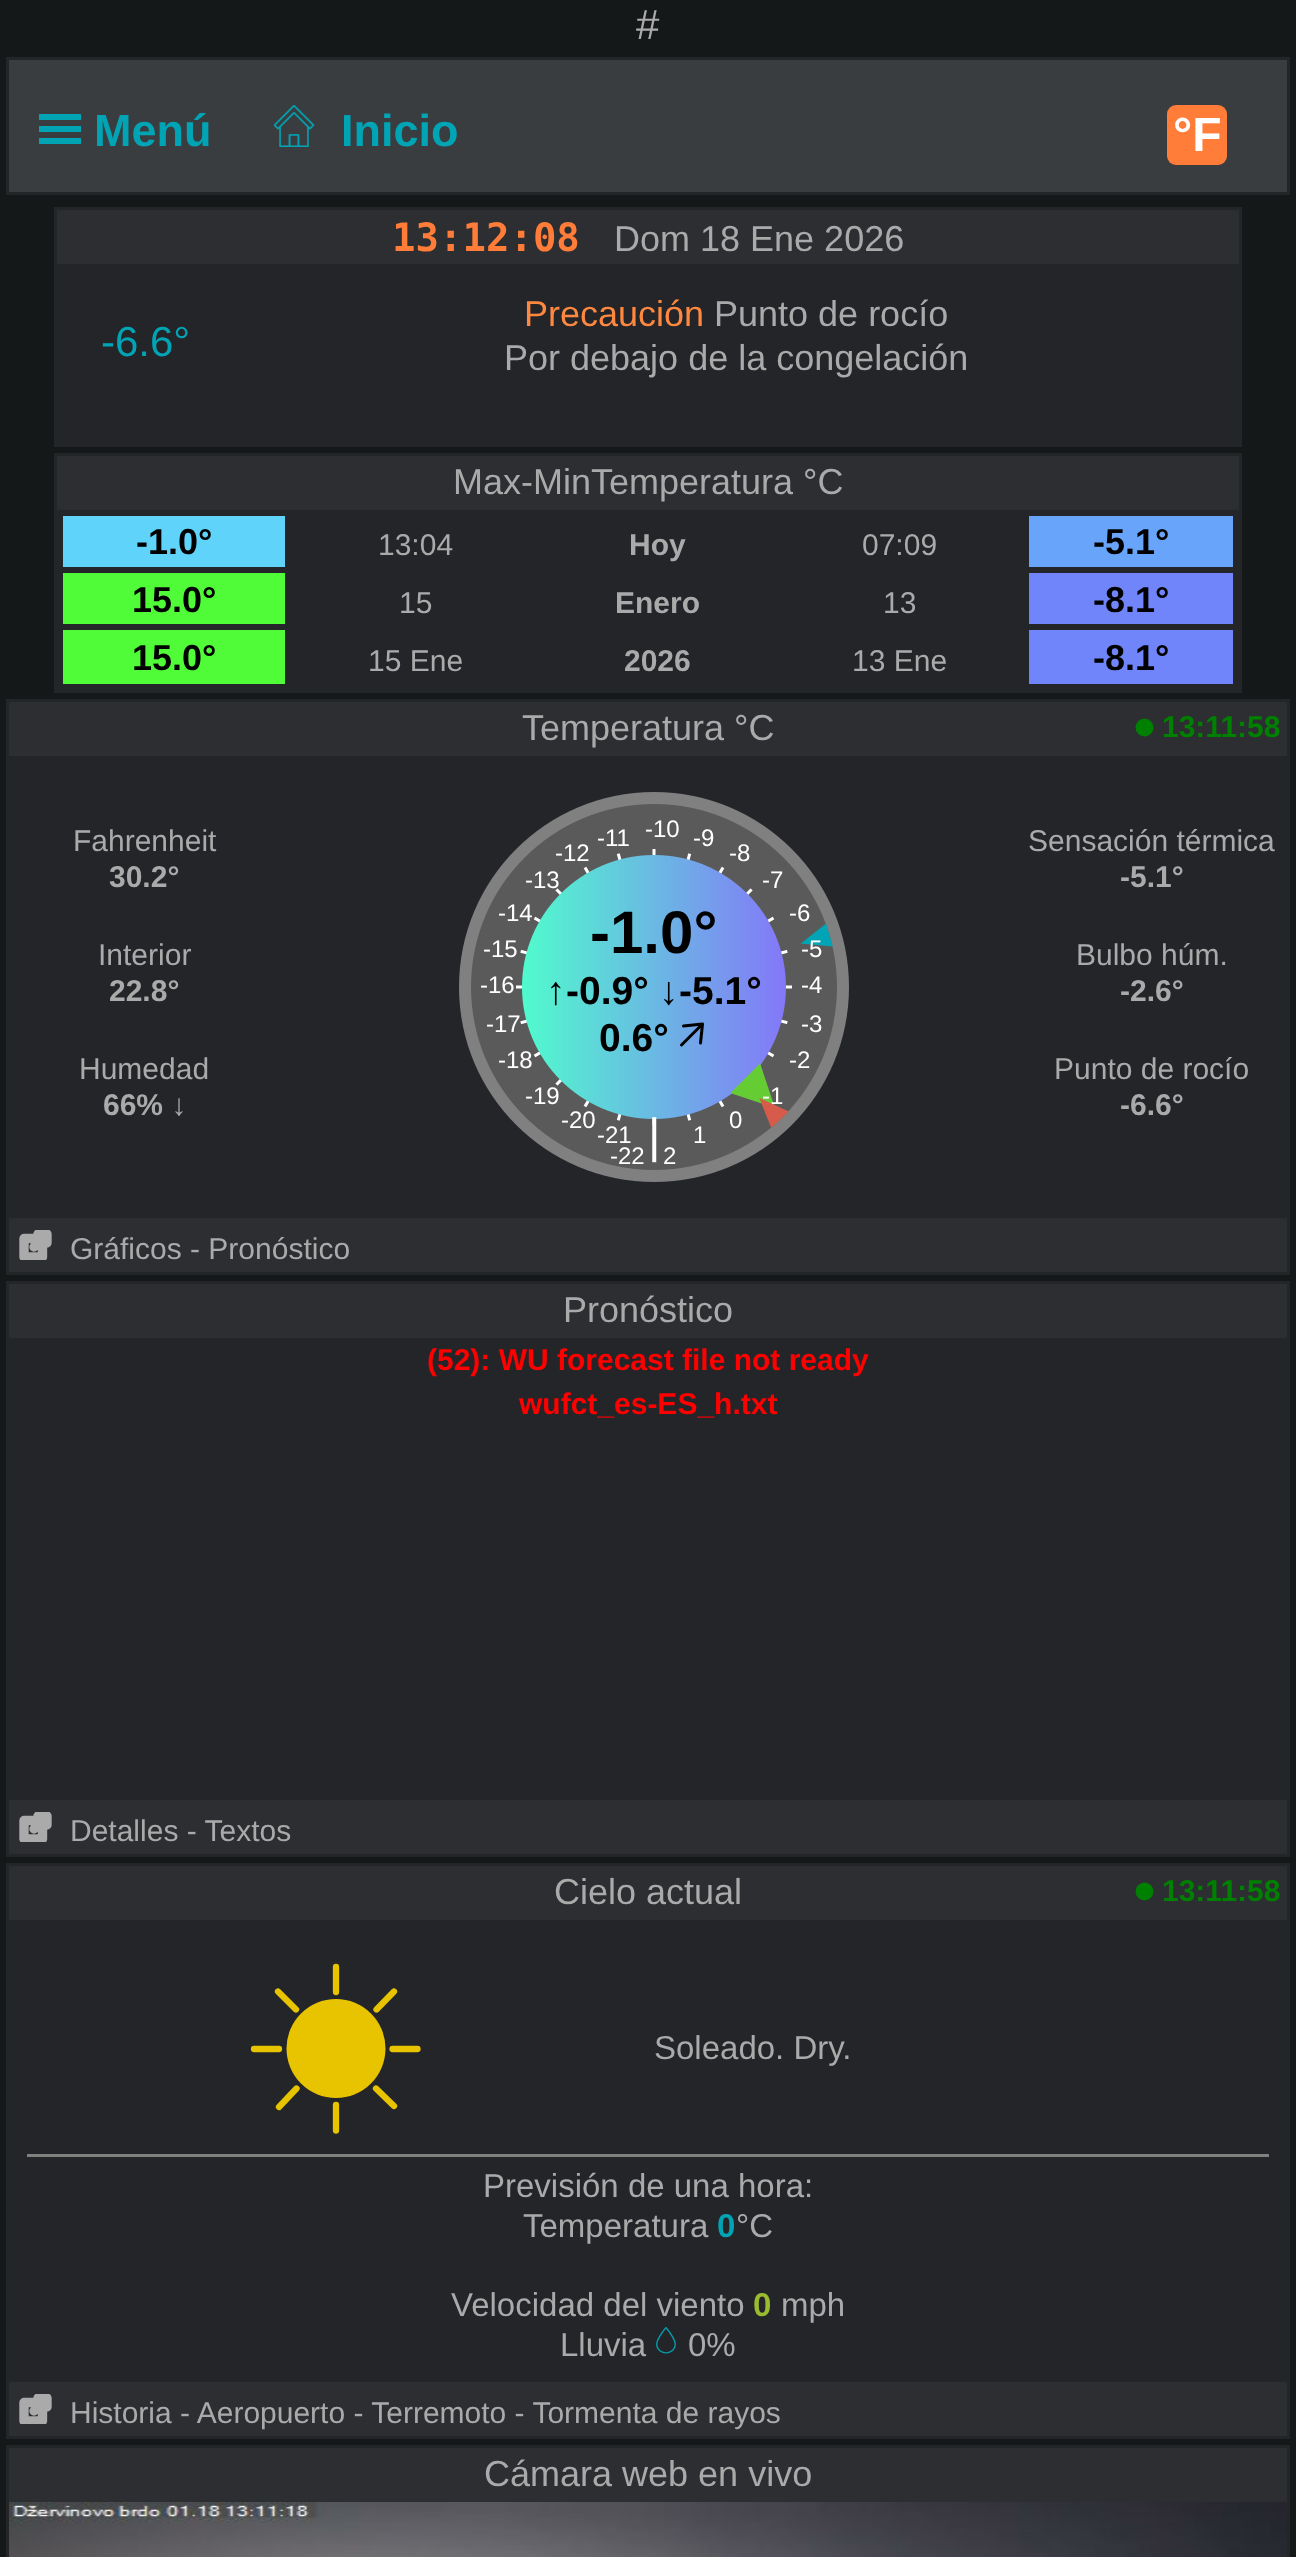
<svg xmlns="http://www.w3.org/2000/svg" xmlns:xlink="http://www.w3.org/1999/xlink" width="1296" height="2557" viewBox="0 0 1296 2557">
<style>
.cls-1{font:42px Liberation Sans;fill:#aaaaaa}
.cls-2{font:bold 45px Liberation Sans;fill:#01a4b4}
.cls-3{font:bold 48px Liberation Sans;fill:#ffffff}
.cls-4{font:bold 39px DejaVu Sans Mono;fill:#ff7c39}
.cls-5{font:36px Liberation Sans;fill:#aaaaaa}
.cls-6{font:42px Liberation Sans;fill:#01a4b4}
.cls-7{font:36px Liberation Sans;fill:#ff8841}
.cls-8{font:bold 36px Liberation Sans;fill:#000000}
.cls-9{font:30px Liberation Sans;fill:#aaaaaa}
.cls-10{font:bold 30px Liberation Sans;fill:#aaaaaa}
.cls-11{font:bold 30px Liberation Sans;fill:#008000}
.cls-12{font:24px Liberation Sans;fill:#ffffff}
.cls-13{font:bold 60px Liberation Sans;fill:#000000}
.cls-14{font:39px Liberation Sans;fill:#000000}
.cls-15{font:bold 39px Liberation Sans;fill:#000000}
.cls-16{font:48px Liberation Sans;fill:#ffffff}
.cls-17{font:bold 30px Liberation Sans;fill:#ff0000}
.cls-18{font:33px Liberation Sans;fill:#aaaaaa}
.cls-19{font:bold 33px Liberation Sans;fill:#01a4b4}
.cls-20{font:bold 33px Liberation Sans;fill:#9aba2f}
</style>
<defs>
<clipPath id="clip1"><rect x="18" y="1230" width="36" height="30"/></clipPath>
<clipPath id="clip2"><rect x="18" y="1812" width="36" height="30"/></clipPath>
<clipPath id="clip3"><rect x="18" y="2394" width="36" height="30"/></clipPath>
</defs>
<rect width="100%" height="100%" fill="#151819"/>
<rect fill="#232529" x="6" y="57" width="1284" height="138"/>
<rect fill="#393d40" x="9" y="60" width="1278" height="132"/>
<rect fill="#01a4b4" x="39" y="114" width="42" height="6"/>
<rect fill="#01a4b4" x="39" y="126" width="42" height="6"/>
<rect fill="#01a4b4" x="39" y="138" width="42" height="6"/>
<image xlink:href="image0.png" x="273" y="105" width="42" height="42"/>
<rect fill="#ff7c39" x="1167" y="105" width="60" height="60" rx="9"/>
<rect fill="#232529" x="54" y="207" width="1188" height="240"/>
<rect fill="#2c2e32" x="57" y="210" width="1182" height="54"/>
<rect fill="#232529" x="54" y="453" width="1188" height="240"/>
<rect fill="#2c2e32" x="57" y="456" width="1182" height="54"/>
<rect fill="#5fd3fa" x="63" y="516" width="222" height="51"/>
<rect fill="#68a4f9" x="1029" y="516" width="204" height="51"/>
<rect fill="#4ffc37" x="63" y="573" width="222" height="51"/>
<rect fill="#7085f9" x="1029" y="573" width="204" height="51"/>
<rect fill="#4ffc37" x="63" y="630" width="222" height="54"/>
<rect fill="#7085f9" x="1029" y="630" width="204" height="54"/>
<rect fill="#232529" x="6" y="699" width="1284" height="576"/>
<rect fill="#2c2e32" x="9" y="702" width="1278" height="54"/>
<circle fill="#008000" cx="1144.5" cy="727.5" r="9"/>
<image xlink:href="image1.png" x="459" y="792" width="390" height="390"/>
<path fill="none" stroke="#000000" stroke-width="3" stroke-linecap="round" d="M681.5 1045L702.5 1024M683.5 1026L702.5 1024M700.5 1043L702.5 1024"/>
<rect fill="#2c2e32" x="9" y="1218" width="1278" height="54"/>
<g clip-path="url(#clip1)">
<path fill="none" stroke="#aaaaaa" stroke-width="9.4" stroke-linecap="round" stroke-linejoin="round" d="M34 1238.5H24V1257H42.5V1247M38 1234H47V1243M47 1234L34 1247"/>
</g>
<rect fill="#232529" x="6" y="1281" width="1284" height="576"/>
<rect fill="#2c2e32" x="9" y="1284" width="1278" height="54"/>
<rect fill="#2c2e32" x="9" y="1800" width="1278" height="54"/>
<g clip-path="url(#clip2)">
<path fill="none" stroke="#aaaaaa" stroke-width="9.4" stroke-linecap="round" stroke-linejoin="round" d="M34 1820.5H24V1839H42.5V1829M38 1816H47V1825M47 1816L34 1829"/>
</g>
<rect fill="#232529" x="6" y="1863" width="1284" height="576"/>
<rect fill="#2c2e32" x="9" y="1866" width="1278" height="54"/>
<circle fill="#008000" cx="1144.5" cy="1891.5" r="9"/>
<path fill="none" stroke="#e8c400" stroke-width="6.3" stroke-linecap="round" d="M336 1967V1992"/>
<path fill="none" stroke="#e8c400" stroke-width="6.3" stroke-linecap="round" d="M296 2009.5L278 1991.5"/>
<path fill="none" stroke="#e8c400" stroke-width="6.3" stroke-linecap="round" d="M394 1991.5L376.5 2009.5"/>
<path fill="none" stroke="#e8c400" stroke-width="6.3" stroke-linecap="round" d="M279 2049H254"/>
<path fill="none" stroke="#e8c400" stroke-width="6.3" stroke-linecap="round" d="M296.5 2088.5L279 2107"/>
<path fill="none" stroke="#e8c400" stroke-width="6.3" stroke-linecap="round" d="M394 2106L376 2088.5"/>
<circle fill="#e8c400" cx="336" cy="2048.5" r="49.5"/>
<path fill="none" stroke="#e8c400" stroke-width="6.3" stroke-linecap="round" d="M417.5 2049H392.5"/>
<path fill="none" stroke="#e8c400" stroke-width="6.3" stroke-linecap="round" d="M336 2105V2130.5"/>
<rect fill="#808080" x="27" y="2154" width="1242" height="3"/>
<image xlink:href="image2.png" x="656" y="2327" width="20" height="27"/>
<rect fill="#2c2e32" x="9" y="2382" width="1278" height="54"/>
<g clip-path="url(#clip3)">
<path fill="none" stroke="#aaaaaa" stroke-width="9.4" stroke-linecap="round" stroke-linejoin="round" d="M34 2402.5H24V2421H42.5V2411M38 2398H47V2407M47 2398L34 2411"/>
</g>
<rect fill="#232529" x="6" y="2445" width="1284" height="112"/>
<rect fill="#2c2e32" x="9" y="2448" width="1278" height="54"/>
<image xlink:href="image3.png" x="9" y="2502" width="1278" height="55"/>
<text class="cls-1" x="636" y="39">#</text>
<text class="cls-2" x="94" y="146">Menú</text>
<text class="cls-2" x="341" y="146">Inicio</text>
<text class="cls-3" x="1173" y="151">°F</text>
<text class="cls-4" x="392" y="251">13:12:08</text>
<text class="cls-5" x="614" y="251">Dom 18 Ene 2026</text>
<text class="cls-6" x="101" y="356">-6.6°</text>
<text class="cls-7" x="524" y="326">Precaución</text>
<text class="cls-5" x="714" y="326">Punto de rocío</text>
<text class="cls-5" x="504" y="370">Por debajo de la congelación</text>
<text class="cls-5" x="453" y="494">Max-MinTemperatura °C</text>
<text class="cls-8" x="136" y="554">-1.0°</text>
<text class="cls-9" x="378" y="555">13:04</text>
<text class="cls-10" x="629" y="555">Hoy</text>
<text class="cls-9" x="862" y="555">07:09</text>
<text class="cls-8" x="1093" y="554">-5.1°</text>
<text class="cls-8" x="132" y="612">15.0°</text>
<text class="cls-9" x="399" y="613">15</text>
<text class="cls-10" x="615" y="613">Enero</text>
<text class="cls-9" x="883" y="613">13</text>
<text class="cls-8" x="1093" y="612">-8.1°</text>
<text class="cls-8" x="132" y="670">15.0°</text>
<text class="cls-9" x="368" y="671">15 Ene</text>
<text class="cls-10" x="624" y="671">2026</text>
<text class="cls-9" x="852" y="671">13 Ene</text>
<text class="cls-8" x="1093" y="670">-8.1°</text>
<text class="cls-5" x="522" y="740">Temperatura °C</text>
<text class="cls-11" x="1162" y="737">13:11:58</text>
<text class="cls-9" x="73" y="851">Fahrenheit</text>
<text class="cls-10" x="109" y="887">30.2°</text>
<text class="cls-9" x="98" y="965">Interior</text>
<text class="cls-10" x="109" y="1001">22.8°</text>
<text class="cls-9" x="79" y="1079">Humedad</text>
<text class="cls-10" x="103" y="1115">66% ↓</text>
<text class="cls-12" x="597" y="846">-11</text>
<text class="cls-12" x="645" y="837">-10</text>
<text class="cls-12" x="693" y="846">-9</text>
<text class="cls-12" x="555" y="861">-12</text>
<text class="cls-12" x="729" y="861">-8</text>
<text class="cls-12" x="525" y="888">-13</text>
<text class="cls-12" x="762" y="888">-7</text>
<text class="cls-12" x="498" y="921">-14</text>
<text class="cls-13" x="590" y="953">-1.0°</text>
<text class="cls-14" x="546" y="1004">↑</text>
<text class="cls-15" x="566" y="1004">-0.9°</text>
<text class="cls-14" x="659" y="1004">↓</text>
<text class="cls-15" x="679" y="1004">-5.1°</text>
<text class="cls-15" x="599" y="1051">0.6°</text>
<text class="cls-12" x="789" y="921">-6</text>
<text class="cls-12" x="483" y="957">-15</text>
<text class="cls-12" x="801" y="957">-5</text>
<text class="cls-12" x="480" y="993">-16</text>
<text class="cls-12" x="801" y="993">-4</text>
<text class="cls-12" x="486" y="1032">-17</text>
<text class="cls-12" x="801" y="1032">-3</text>
<text class="cls-12" x="498" y="1068">-18</text>
<text class="cls-12" x="789" y="1068">-2</text>
<text class="cls-12" x="525" y="1104">-19</text>
<text class="cls-12" x="762" y="1104">-1</text>
<text class="cls-12" x="561" y="1128">-20</text>
<text class="cls-12" x="597" y="1143">-21</text>
<text class="cls-16" x="648" y="1152">|</text>
<text class="cls-12" x="693" y="1143">1</text>
<text class="cls-12" x="729" y="1128">0</text>
<text class="cls-12" x="610" y="1164">-22</text>
<text class="cls-12" x="663" y="1164">2</text>
<text class="cls-9" x="1028" y="851">Sensación térmica</text>
<text class="cls-10" x="1120" y="887">-5.1°</text>
<text class="cls-9" x="1076" y="965">Bulbo húm.</text>
<text class="cls-10" x="1120" y="1001">-2.6°</text>
<text class="cls-9" x="1054" y="1079">Punto de rocío</text>
<text class="cls-10" x="1120" y="1115">-6.6°</text>
<text class="cls-9" x="70" y="1259">Gráficos - Pronóstico</text>
<text class="cls-5" x="563" y="1322">Pronóstico</text>
<text class="cls-17" x="427" y="1370">(52): WU forecast file not ready</text>
<text class="cls-17" x="519" y="1414">wufct_es-ES_h.txt</text>
<text class="cls-9" x="70" y="1841">Detalles - Textos</text>
<text class="cls-5" x="554" y="1904">Cielo actual</text>
<text class="cls-11" x="1162" y="1901">13:11:58</text>
<text class="cls-18" x="654" y="2059">Soleado. Dry.</text>
<text class="cls-18" x="483" y="2197">Previsión de una hora:</text>
<text class="cls-18" x="523" y="2237">Temperatura</text>
<text class="cls-19" x="717" y="2237">0</text>
<text class="cls-18" x="736" y="2237">°C</text>
<text class="cls-18" x="451" y="2316">Velocidad del viento</text>
<text class="cls-20" x="753" y="2316">0</text>
<text class="cls-18" x="781" y="2316">mph</text>
<text class="cls-18" x="560" y="2356">Lluvia</text>
<text class="cls-18" x="688" y="2356">0%</text>
<text class="cls-9" x="70" y="2423">Historia - Aeropuerto - Terremoto - Tormenta de rayos</text>
<text class="cls-5" x="484" y="2486">Cámara web en vivo</text>
</svg>
